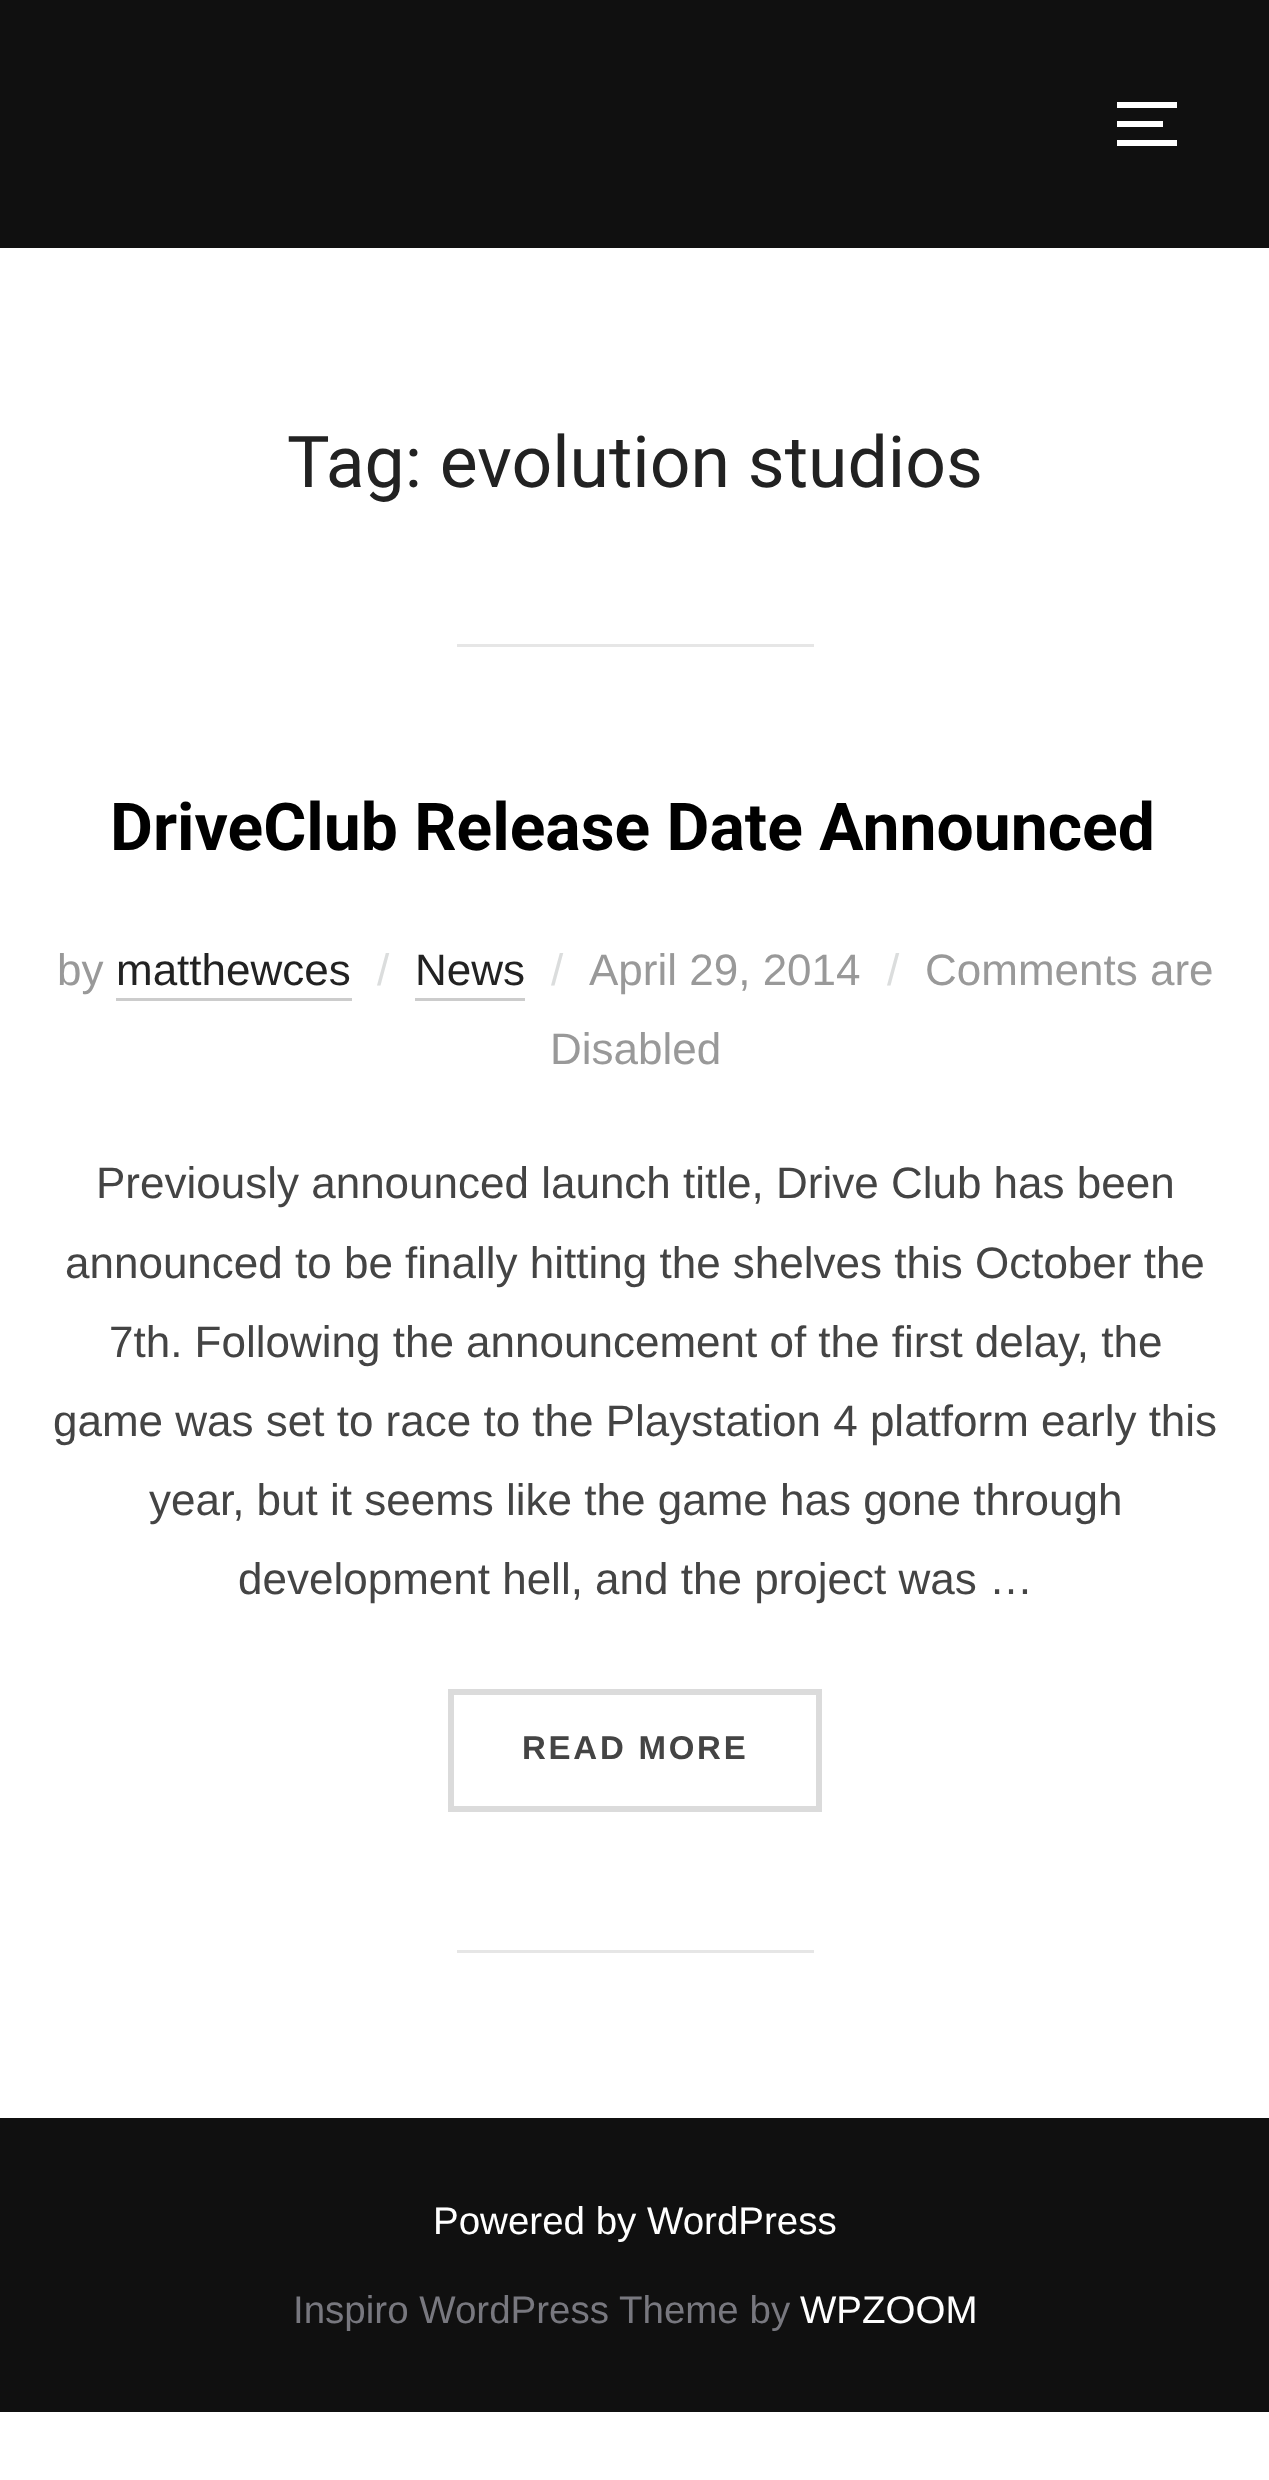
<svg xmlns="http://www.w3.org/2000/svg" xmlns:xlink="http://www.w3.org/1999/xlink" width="1269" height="2480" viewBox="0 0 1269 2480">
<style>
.cls-1{font:71.5px Roboto;fill:#222222}
.cls-2{font:bold 66px Roboto;fill:#000000}
.cls-3{font:44px Liberation Sans;fill:#999999}
.cls-4{font:44px Liberation Sans;fill:#222222}
.cls-5{font:44px Liberation Sans;fill:#dbdddd}
.cls-6{font:44px Liberation Sans;fill:#444444}
.cls-7{font:bold 33px Liberation Sans;letter-spacing:2.75px;fill:#444444}
.cls-8{font:38.5px Liberation Sans;fill:#ffffff}
.cls-9{font:38.5px Liberation Sans;fill:#78787f}
</style>
<rect width="100%" height="100%" fill="#ffffff"/>
<rect fill="#101010" x="0" y="0" width="1269" height="248"/>
<rect fill="#ffffff" x="1117" y="102" width="60" height="6"/>
<rect fill="#ffffff" x="1117" y="121" width="46" height="6"/>
<rect fill="#ffffff" x="1117" y="140" width="60" height="6"/>
<rect fill="#e6e6e6" x="457" y="644" width="357" height="3"/>
<rect fill="#cccccc" x="116" y="998" width="236" height="3"/>
<rect fill="#cccccc" x="415" y="998" width="110" height="3"/>
<rect fill="none" stroke="#dbdbdb" stroke-width="6" x="451" y="1692" width="368" height="117"/>
<rect fill="#e6e6e6" x="457" y="1950" width="357" height="3"/>
<rect fill="#101010" x="0" y="2118" width="1269" height="294"/>
<text class="cls-1" x="287" y="487">Tag: evolution studios</text>
<text class="cls-2" x="110" y="850">DriveClub Release Date Announced</text>
<text class="cls-3" x="57" y="985">by</text>
<text class="cls-4" x="116" y="985">matthewces</text>
<text class="cls-5" x="377" y="985">/</text>
<text class="cls-4" x="415" y="985">News</text>
<text class="cls-5" x="551" y="985">/</text>
<text class="cls-3" x="589" y="985">April 29, 2014</text>
<text class="cls-5" x="887" y="985">/</text>
<text class="cls-3" x="925" y="985">Comments are</text>
<text class="cls-3" x="550" y="1064">Disabled</text>
<text class="cls-6" x="96" y="1198">Previously announced launch title, Drive Club has been</text>
<text class="cls-6" x="65" y="1278">announced to be finally hitting the shelves this October the</text>
<text class="cls-6" x="109" y="1357">7th. Following the announcement of the first delay, the</text>
<text class="cls-6" x="53" y="1436">game was set to race to the Playstation 4 platform early this</text>
<text class="cls-6" x="149" y="1515">year, but it seems like the game has gone through</text>
<text class="cls-6" x="238" y="1594">development hell, and the project was …</text>
<text class="cls-7" x="522" y="1759">READ MORE</text>
<text class="cls-8" x="433" y="2234">Powered by WordPress</text>
<text class="cls-9" x="293" y="2323">Inspiro WordPress Theme by</text>
<text class="cls-8" x="800" y="2323">WPZOOM</text>
</svg>
